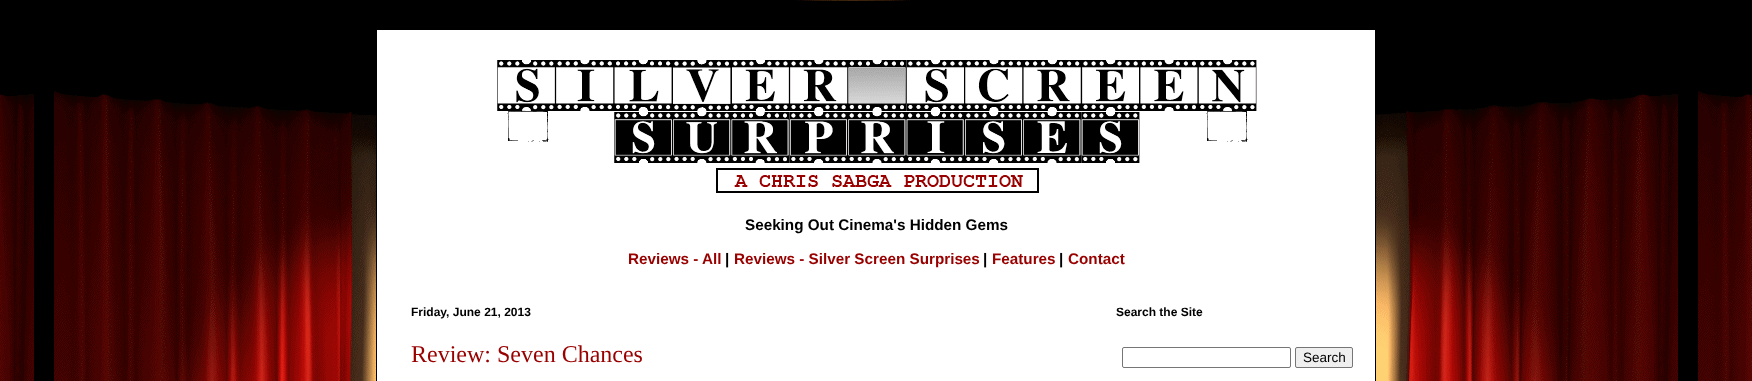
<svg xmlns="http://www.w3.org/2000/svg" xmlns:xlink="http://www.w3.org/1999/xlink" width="1752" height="381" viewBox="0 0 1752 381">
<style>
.cls-1{font:bold 15.25px Liberation Sans;fill:#000000}
.cls-2{font:bold 15.25px Liberation Sans;fill:#990000}
.cls-3{font:bold 12px Liberation Sans;fill:#000000}
.cls-4{font:24px Liberation Serif;fill:#990000}
.cls-5{font:13.5px Liberation Sans;fill:#000000}
</style>
<rect width="100%" height="100%" fill="#ffffff"/>
<image xlink:href="image0.png" x="0" y="0" width="1752" height="381"/>
<rect fill="#ffffff" x="377" y="30" width="998" height="351"/>
<rect fill="#000000" x="1375" y="115" width="1" height="266"/>
<rect fill="#000000" x="376" y="115" width="1" height="266"/>
<image xlink:href="image1.png" x="497" y="60" width="760" height="133"/>
<rect fill="none" stroke="#767676" x="1122.5" y="347.5" width="168" height="20" rx="1.5"/>
<rect fill="#efefef" stroke="#767676" x="1295.5" y="347.5" width="57" height="20" rx="1.5"/>
<text class="cls-1" x="745" y="230">Seeking Out Cinema's Hidden Gems</text>
<text class="cls-2" x="628" y="264">Reviews - All</text>
<text class="cls-1" x="725" y="264">|</text>
<text class="cls-2" x="734" y="264">Reviews - Silver Screen Surprises</text>
<text class="cls-1" x="983" y="264">|</text>
<text class="cls-2" x="992" y="264">Features</text>
<text class="cls-1" x="1059" y="264">|</text>
<text class="cls-2" x="1068" y="264">Contact</text>
<text class="cls-3" x="411" y="316">Friday, June 21, 2013</text>
<text class="cls-4" x="411" y="362">Review: Seven Chances</text>
<text class="cls-3" x="1116" y="316">Search the Site</text>
<text class="cls-5" x="1303" y="362">Search</text>
</svg>
